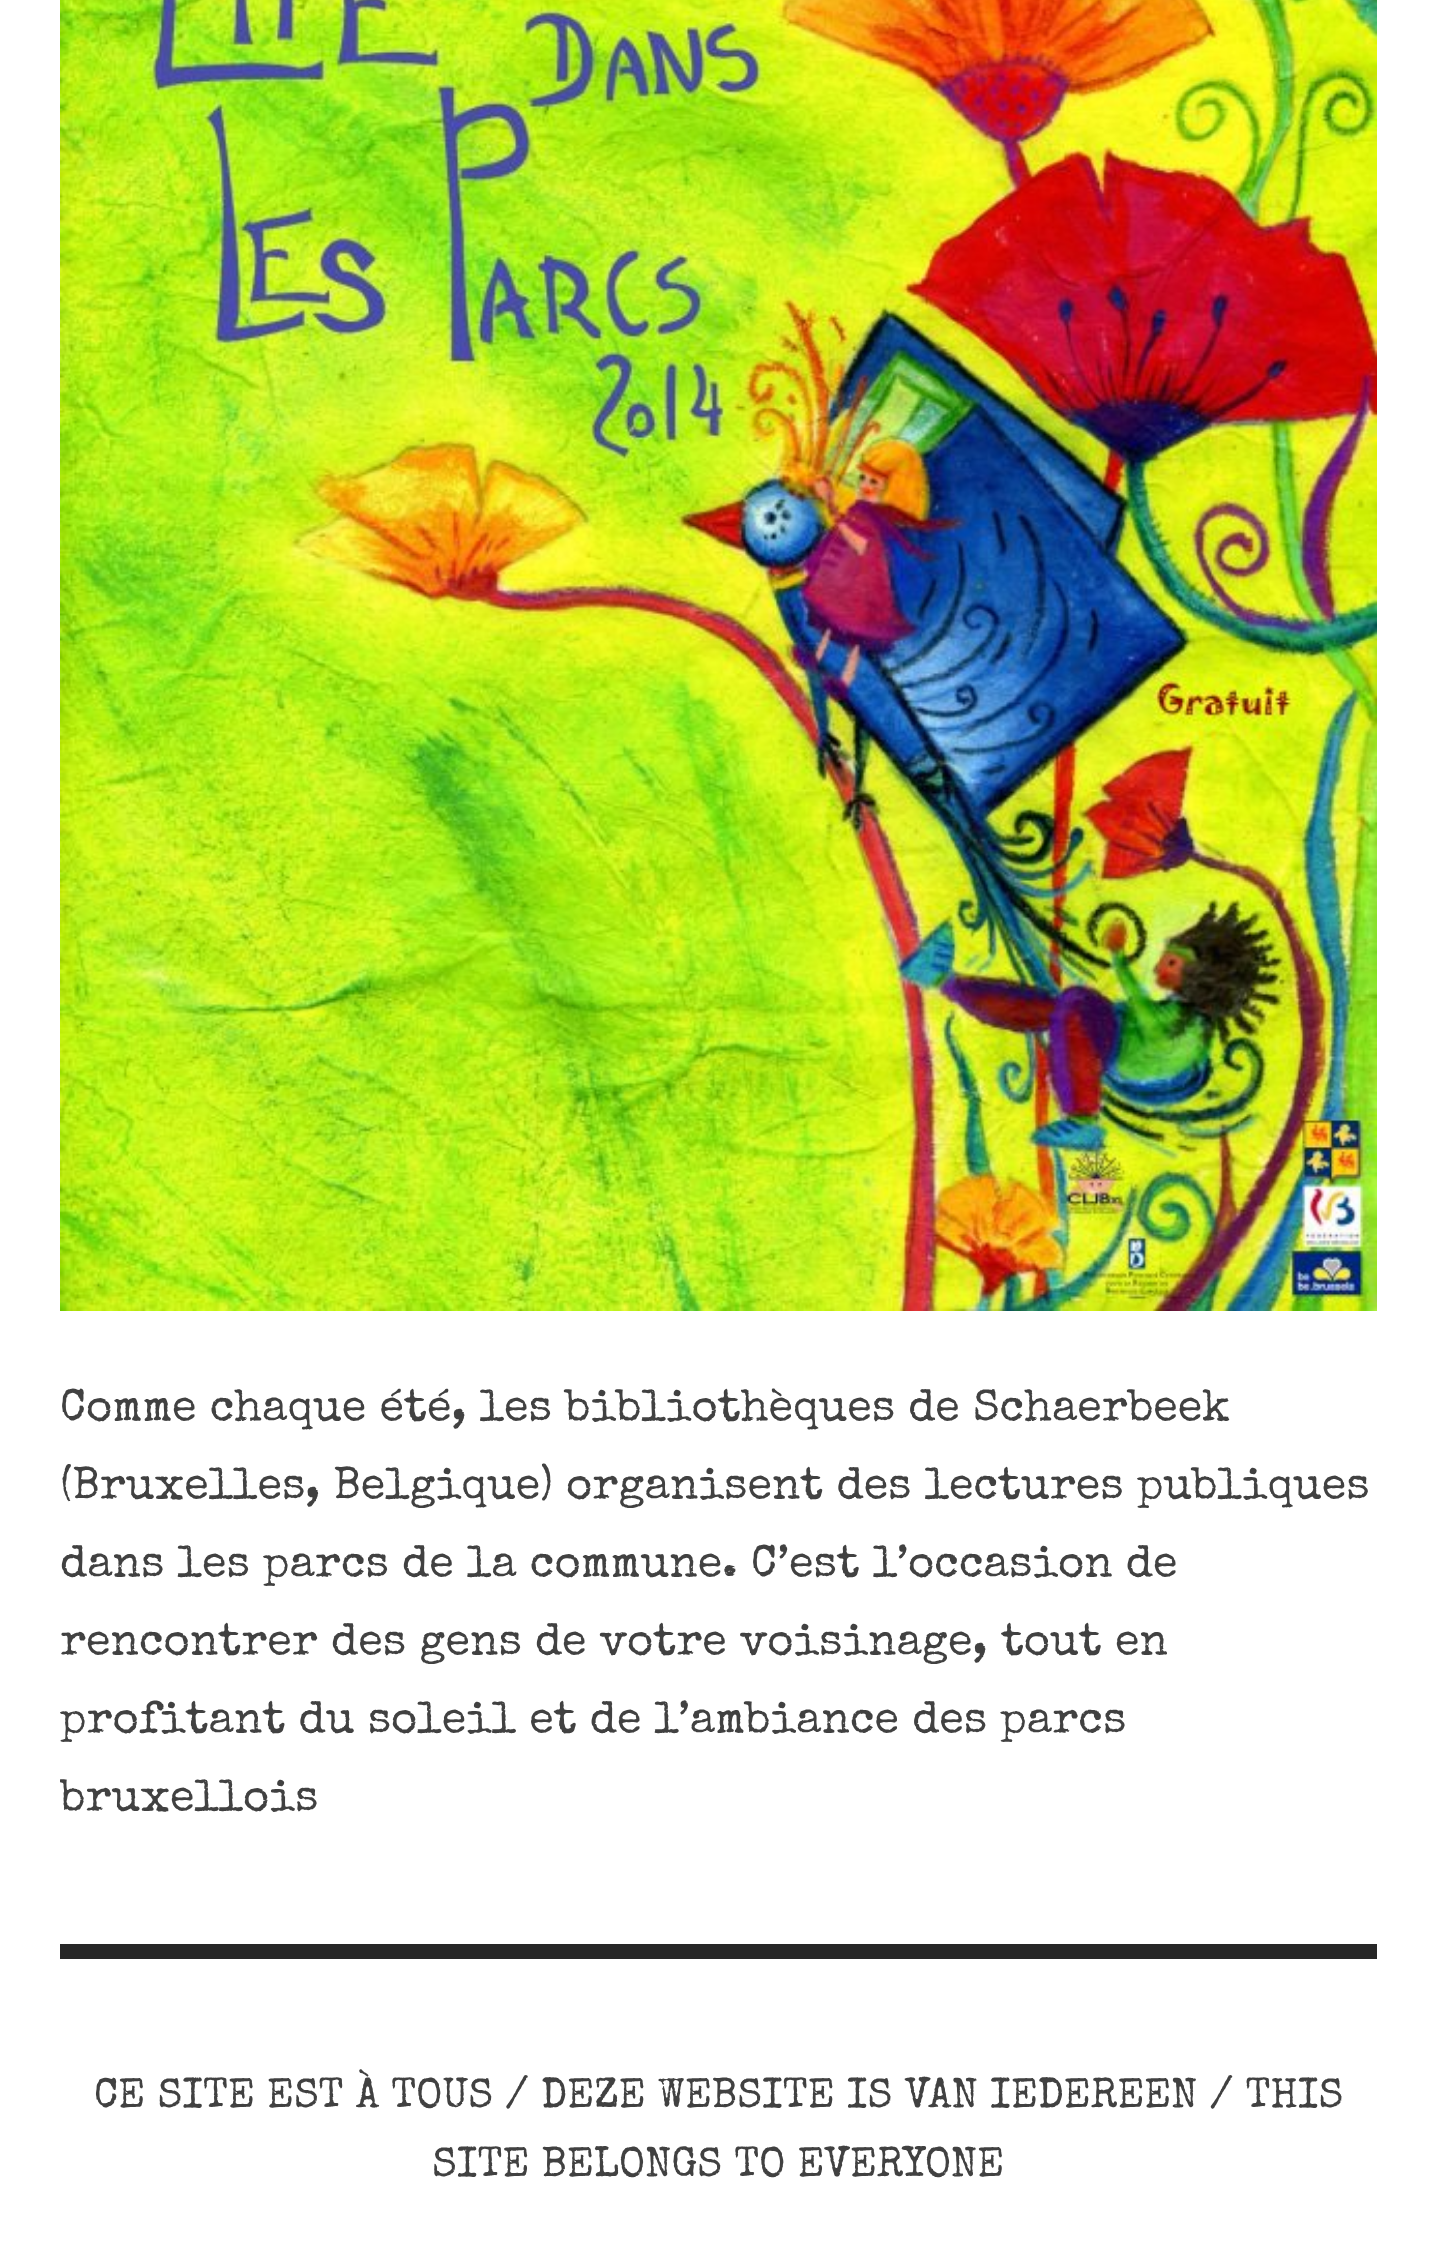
<svg xmlns="http://www.w3.org/2000/svg" xmlns:xlink="http://www.w3.org/1999/xlink" width="1436" height="2241" viewBox="0 0 1436 2241">
<style>
.cls-1{font:45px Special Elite;fill:#414141}
.cls-2{font:42px Special Elite;fill:#414141}
</style>
<defs>
<clipPath id="clip1"><rect x="60" y="1371" width="1317" height="513"/></clipPath>
</defs>
<rect width="100%" height="100%" fill="#ffffff"/>
<image xlink:href="image0.png" x="60" y="0" width="1317" height="1311"/>
<rect fill="#272727" x="60" y="1944" width="1317" height="15"/>
<text class="cls-1"><tspan x="60" y="1420">Comme chaque été, les bibliothèques de Schaerbeek</tspan><tspan x="60" y="1498">(Bruxelles, Belgique) organisent des lectures publiques</tspan><tspan x="60" y="1576">dans les parcs de la commune. C’est l’occasion de</tspan><tspan x="60" y="1654">rencontrer des gens de votre voisinage, tout en</tspan><tspan x="60" y="1732">profitant du soleil et de l’ambiance des parcs</tspan></text>
<g clip-path="url(#clip1)">
<text class="cls-1" x="60" y="1810">bruxellois</text>
</g>
<text class="cls-2" x="94" y="2107">CE SITE EST À TOUS / DEZE WEBSITE IS VAN IEDEREEN / THIS</text>
<text class="cls-2" x="432" y="2176">SITE BELONGS TO EVERYONE</text>
</svg>
